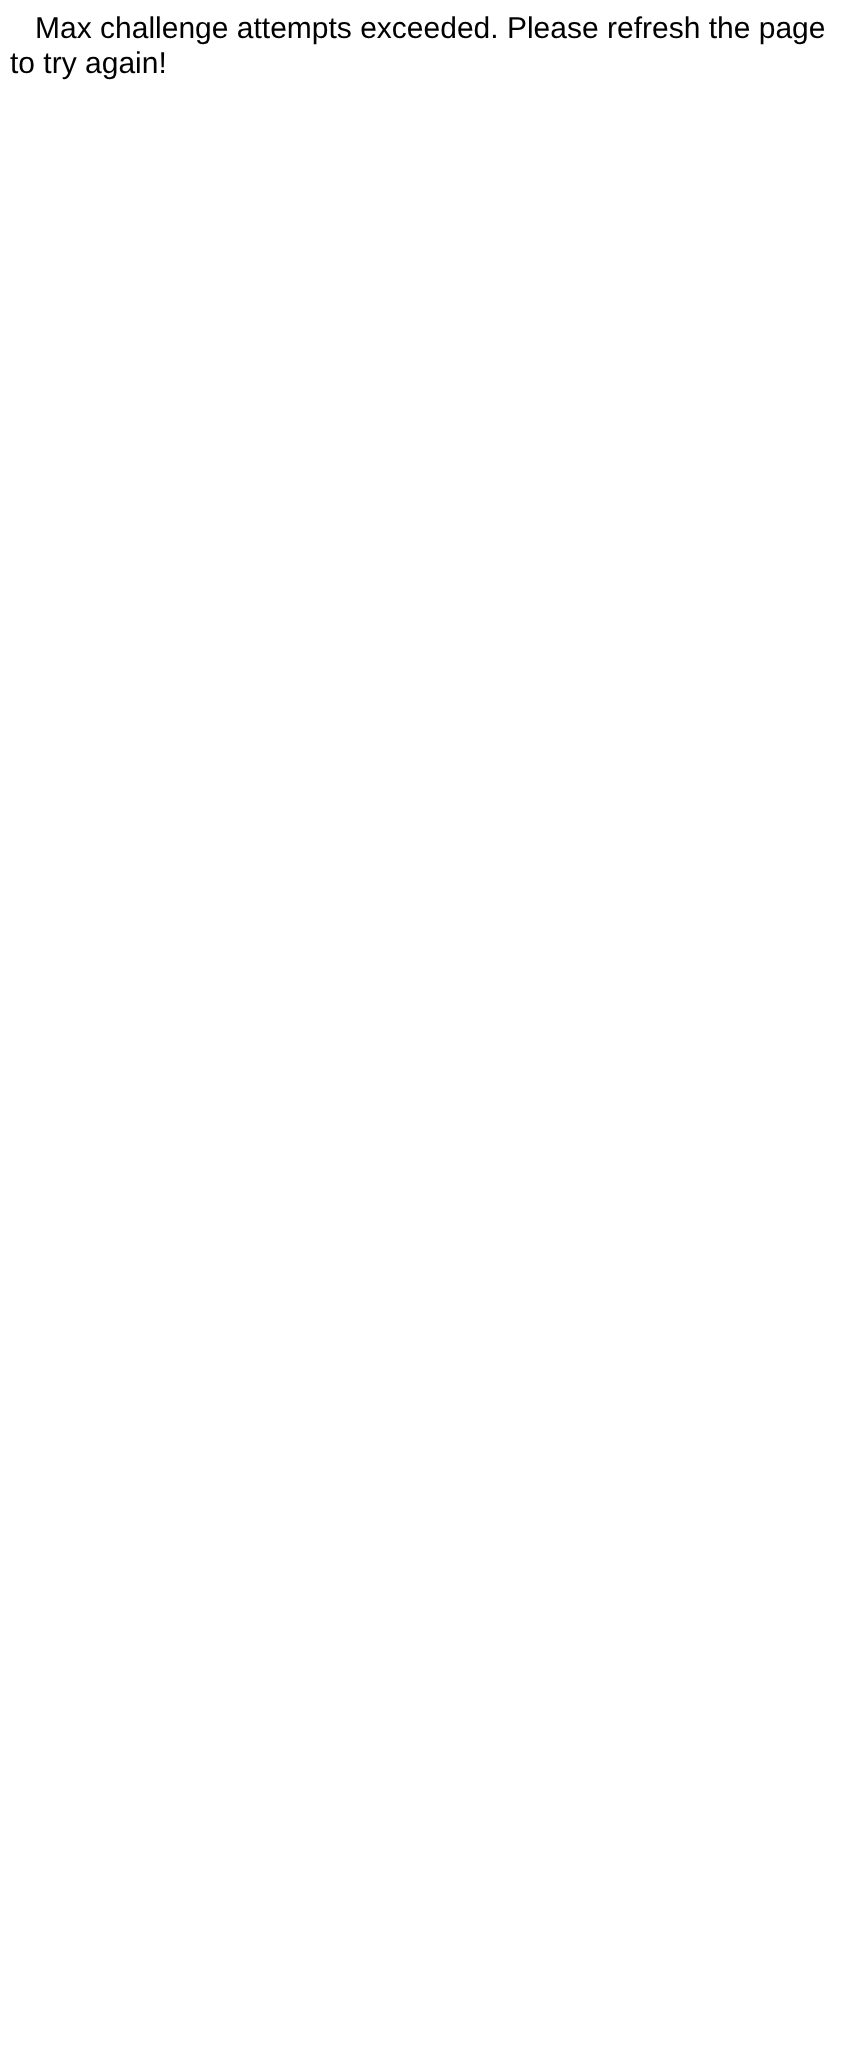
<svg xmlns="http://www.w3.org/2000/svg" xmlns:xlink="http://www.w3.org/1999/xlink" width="859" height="2046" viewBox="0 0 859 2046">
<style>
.cls-1{font:30px Liberation Sans;fill:#000000}
</style>
<rect width="100%" height="100%" fill="#ffffff"/>
<text class="cls-1" x="35" y="38">Max challenge attempts exceeded. Please refresh the page</text>
<text class="cls-1" x="10" y="73">to try again!</text>
</svg>
